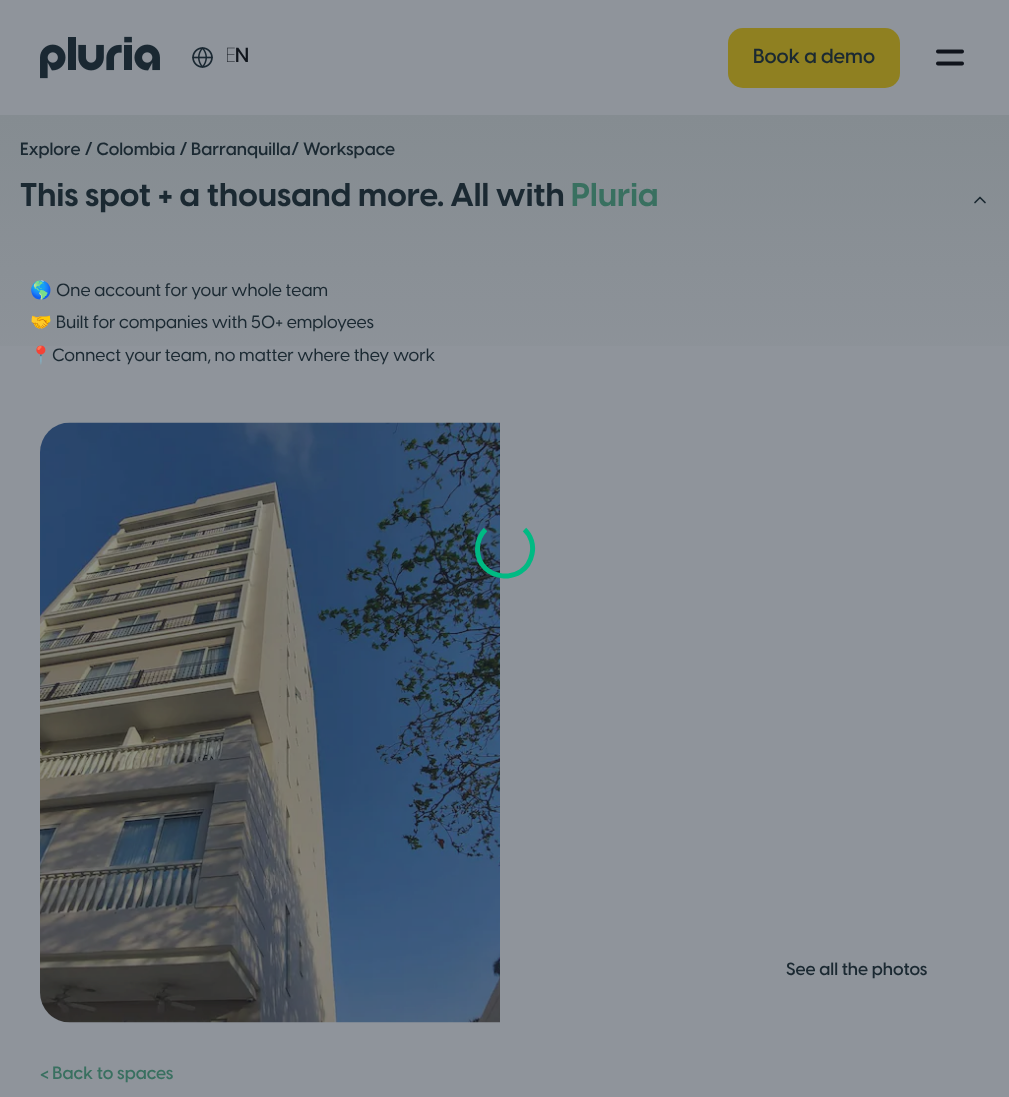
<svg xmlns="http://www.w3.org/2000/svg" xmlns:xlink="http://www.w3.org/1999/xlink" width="1009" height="1097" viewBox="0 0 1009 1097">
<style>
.cls-1{font:100 20px Noto Sans;fill:#10151c}
.cls-2{font:600 20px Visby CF;fill:#10151c}
.cls-3{font:600 20px Visby CF;fill:#1b2932}
.cls-4{font:600 17.5px Visby CF;fill:#1b2932}
.cls-5{font:bold 32.5px Visby CF;fill:#1b2932}
.cls-6{font:bold 32.5px Visby CF;fill:#397060}
.cls-7{font:17.5px Noto Color Emoji;fill:#1b2932}
.cls-8{font:500 17.5px Visby CF;fill:#1b2932}
.cls-9{font:600 17.5px Visby CF;fill:#397060}
</style>
<defs>
<linearGradient id="g1" gradientUnits="userSpaceOnUse" x1="505" y1="115" x2="505" y2="423"><stop offset="0" stop-color="#858c91"/><stop offset="1" stop-color="#8f949b"/></linearGradient>
</defs>
<rect width="100%" height="100%" fill="#8f949b"/>
<image xlink:href="image0.png" x="40" y="36" width="120" height="43"/>
<image xlink:href="image1.png" x="192" y="47" width="21" height="21"/>
<rect fill="#8f8021" x="728" y="28" width="172" height="60" rx="15"/>
<image xlink:href="image2.png" x="936" y="49" width="28" height="17"/>
<rect fill="url(#g1)" x="0" y="115" width="1009" height="231"/>
<path fill="none" stroke="#1b2932" stroke-width="1.7" stroke-linecap="round" stroke-linejoin="round" d="M985 202.5L980 197.5L975 202.5"/>
<image xlink:href="image3.png" x="40" y="422" width="460" height="601"/>
<path fill="none" stroke="#00ba83" stroke-width="5" d="M524.5 529.5C531 535.5 534 545 532 554C525.5 586.5 477.5 581.5 477.5 549C477.5 541.5 480.5 534.5 485.5 529.5"/>
<text class="cls-1" x="225" y="62">E</text>
<text class="cls-2" x="235" y="62">N</text>
<text class="cls-3" x="753" y="63">Book a demo</text>
<text class="cls-4" x="20" y="155">Explore / Colombia / Barranquilla/ Workspace</text>
<text class="cls-5" x="20" y="206">This spot + a thousand more. All with</text>
<text class="cls-6" x="571" y="206">Pluria</text>
<text class="cls-7" x="30" y="296">🌎</text>
<text class="cls-8" x="56" y="296">One account for your whole team</text>
<text class="cls-7" x="30" y="328">🤝</text>
<text class="cls-8" x="56" y="328">Built for companies with 50+ employees</text>
<text class="cls-7" x="30" y="361">📍</text>
<text class="cls-8" x="52" y="361">Connect your team, no matter where they work</text>
<text class="cls-4" x="786" y="975">See all the photos</text>
<text class="cls-9" x="40" y="1079">&lt; Back to spaces</text>
</svg>
